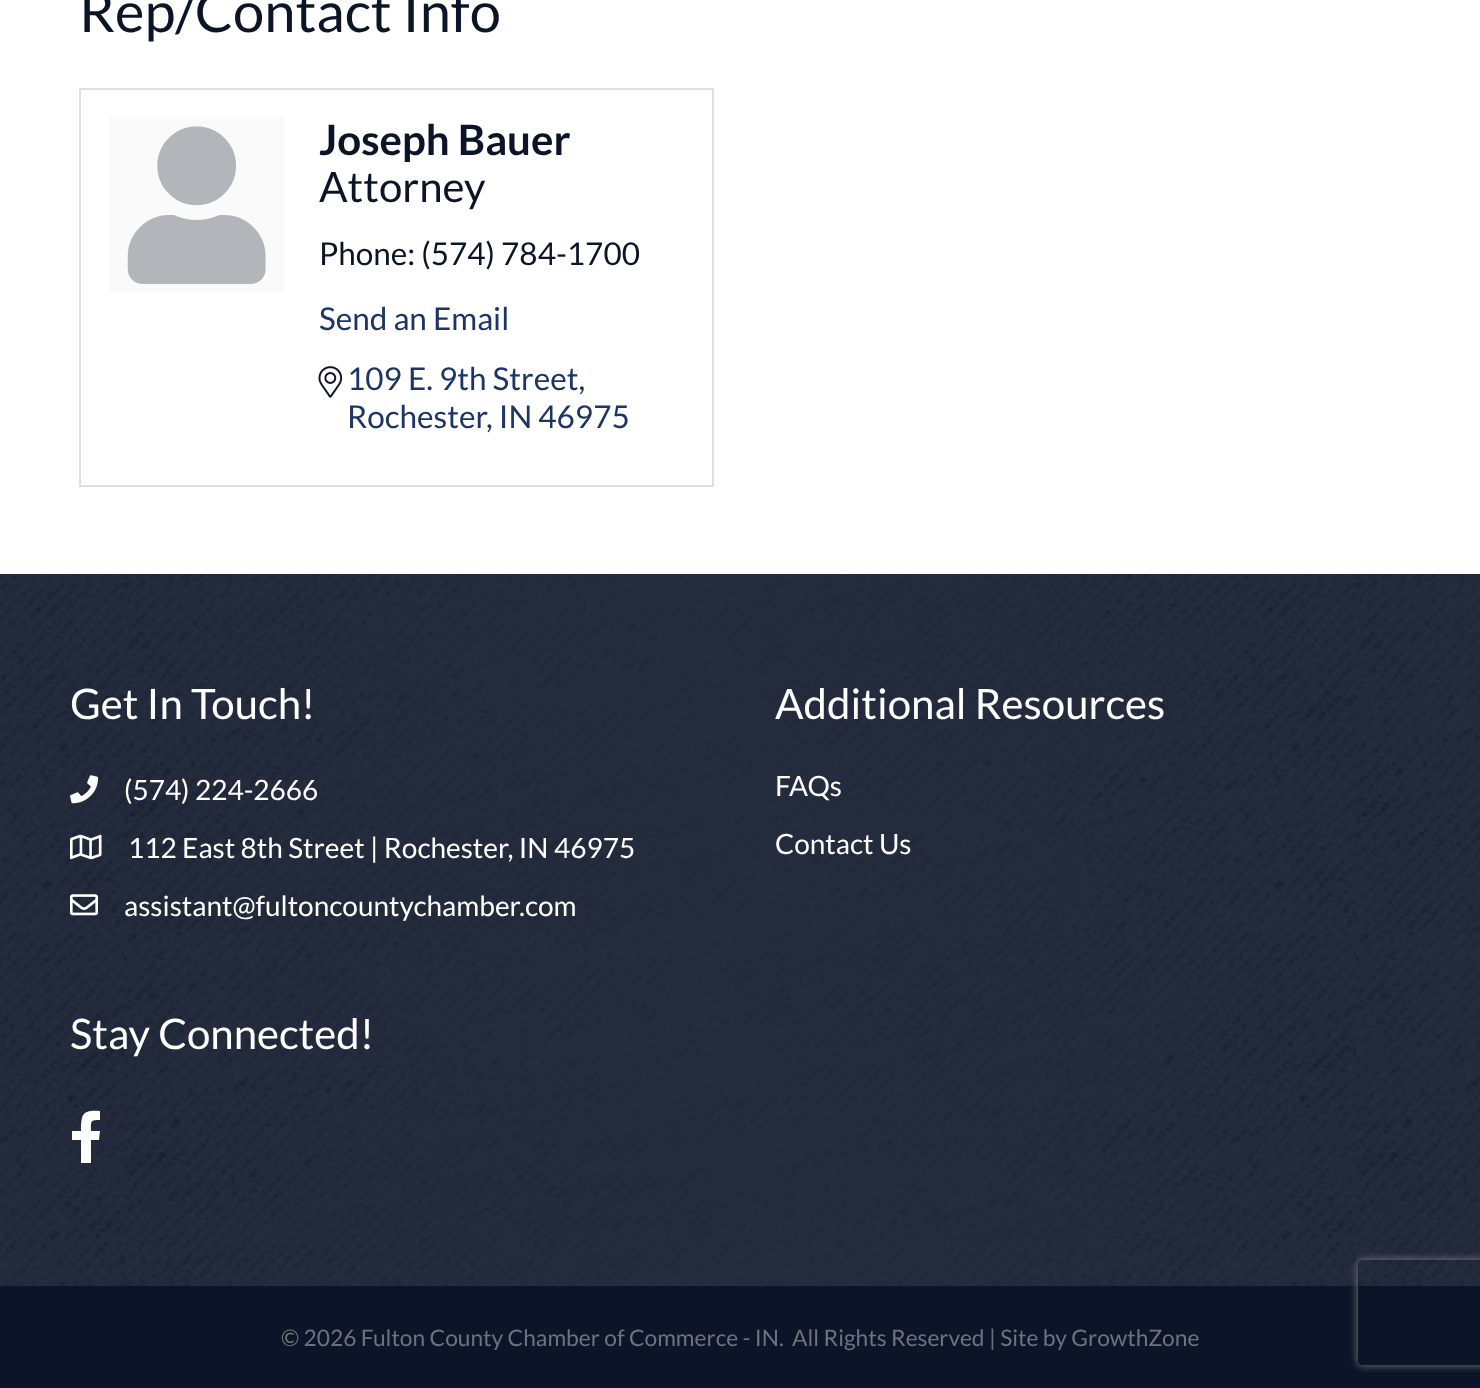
<svg xmlns="http://www.w3.org/2000/svg" xmlns:xlink="http://www.w3.org/1999/xlink" width="1480" height="1388" viewBox="0 0 1480 1388">
<style>
.cls-1{font:56px Lato;fill:#0c1528}
.cls-2{font:bold 42px Lato;fill:#0c1528}
.cls-3{font:42px Lato;fill:#0c1528}
.cls-4{font:31.5px Lato;fill:#0c1528}
.cls-5{font:31.5px Lato;fill:#1d3565}
.cls-6{font:42px Lato;fill:#ffffff}
.cls-7{font:28px Lato;fill:#ffffff}
.cls-8{font:22.75px Lato;fill:#6d737e}
</style>
<defs>
<clipPath id="clip1"><path d="M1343 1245H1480V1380H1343ZM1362 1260H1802C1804 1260 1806 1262 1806 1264V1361C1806 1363 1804 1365 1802 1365H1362C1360 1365 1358 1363 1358 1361V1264C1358 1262 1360 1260 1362 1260Z" clip-rule="evenodd"/></clipPath>
</defs>
<rect width="100%" height="100%" fill="#ffffff"/>
<rect fill="none" stroke="#dfdfdf" stroke-width="2" x="80" y="89" width="633" height="397"/>
<rect fill="#fafafa" x="109" y="117" width="175" height="175"/>
<image xlink:href="image0.png" x="127" y="126" width="139" height="158"/>
<image xlink:href="image1.png" x="318" y="366" width="25" height="32"/>
<image xlink:href="image2.png" x="0" y="574" width="1480" height="712"/>
<image xlink:href="image3.png" x="70" y="775" width="29" height="29"/>
<image xlink:href="image4.png" x="70" y="834" width="32" height="26"/>
<image xlink:href="image5.png" x="70" y="894" width="28" height="22"/>
<path fill="#ffffff" d="M99 1140H91V1163H81V1140H72V1131H81C81 1113 83 1110 100 1111V1120C90 1120 91 1121 91 1131H100Z"/>
<rect fill="#0c1528" x="0" y="1286" width="1480" height="102"/>
<g clip-path="url(#clip1)">
<rect fill="#808080" filter="blur(4.5px)" x="1358" y="1260" width="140" height="105" rx="4"/>
</g>
<text class="cls-1" x="79" y="32">Rep/Contact Info</text>
<text class="cls-2" x="319" y="155">Joseph Bauer</text>
<text class="cls-3" x="319" y="202">Attorney</text>
<text class="cls-4" x="319" y="265">Phone: (574) 784-1700</text>
<text class="cls-5" x="319" y="330">Send an Email</text>
<text class="cls-5"><tspan x="347" y="390">109 E. 9th Street,</tspan><tspan x="347" y="428">Rochester</tspan></text>
<text class="cls-5" x="486" y="428">, IN 46975</text>
<text class="cls-6" x="70" y="719">Get In Touch!</text>
<text class="cls-7" x="124" y="800">(574) 224-2666</text>
<text class="cls-7" x="128" y="858">112 East 8th Street | Rochester, IN 46975</text>
<text class="cls-7" x="124" y="916">assistant@fultoncountychamber.com</text>
<text class="cls-6" x="775" y="719">Additional Resources</text>
<text class="cls-7" x="775" y="796">FAQs</text>
<text class="cls-7" x="775" y="854">Contact Us</text>
<text class="cls-6" x="70" y="1049">Stay Connected!</text>
<text class="cls-8" x="281" y="1346">© 2026 Fulton County Chamber of Commerce - IN.</text>
<text class="cls-8" x="792" y="1346">All Rights Reserved | Site by GrowthZone</text>
</svg>
